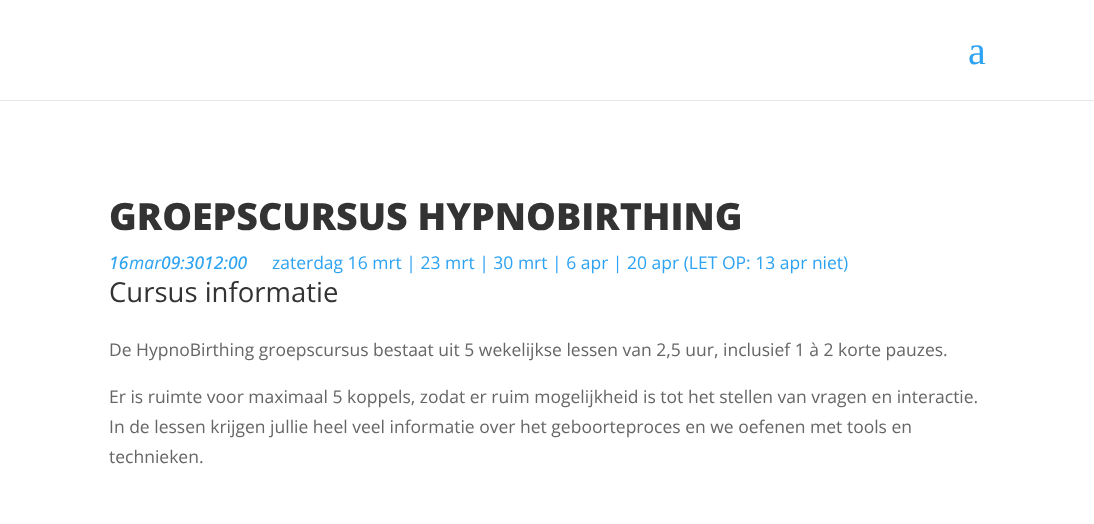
<svg xmlns="http://www.w3.org/2000/svg" xmlns:xlink="http://www.w3.org/1999/xlink" width="1094" height="524" viewBox="0 0 1094 524">
<style>
.cls-1{font:40px Liberation Serif;fill:#2ea3f2}
.cls-2{font:800 37.5px Open Sans;fill:#333333}
.cls-3{font:italic 500 17.5px Open Sans;fill:#2ea3f2}
.cls-4{font:italic 17.5px Open Sans;fill:#2ea3f2}
.cls-5{font:17.5px Open Sans;fill:#2ea3f2}
.cls-6{font:27.5px Open Sans;fill:#333333}
.cls-7{font:17.5px Open Sans;fill:#666666}
</style>
<rect width="100%" height="100%" fill="#ffffff"/>
<rect fill="#e6e6e6" x="0" y="100" width="1094" height="1"/>
<text class="cls-1" x="968" y="64">a</text>
<text class="cls-2" x="109" y="230">GROEPSCURSUS HYPNOBIRTHING</text>
<text class="cls-3" x="109" y="269">16</text>
<text class="cls-4" x="129" y="269">mar</text>
<text class="cls-3" x="161" y="269">09:3012:00</text>
<text class="cls-5" x="272" y="269">zaterdag 16 mrt | 23 mrt | 30 mrt | 6 apr | 20 apr (LET OP: 13 apr niet)</text>
<text class="cls-6" x="109" y="302">Cursus informatie</text>
<text class="cls-7" x="109" y="356">De HypnoBirthing groepscursus bestaat uit 5 wekelijkse lessen van 2,5 uur, inclusief 1 à 2 korte pauzes.</text>
<text class="cls-7"><tspan x="109" y="403">Er is ruimte voor maximaal 5 koppels, zodat er ruim mogelijkheid is tot het stellen van vragen en interactie.</tspan><tspan x="109" y="433">In de lessen krijgen jullie heel veel informatie over het geboorteproces en we oefenen met tools en</tspan><tspan x="109" y="463">technieken.</tspan></text>
</svg>
